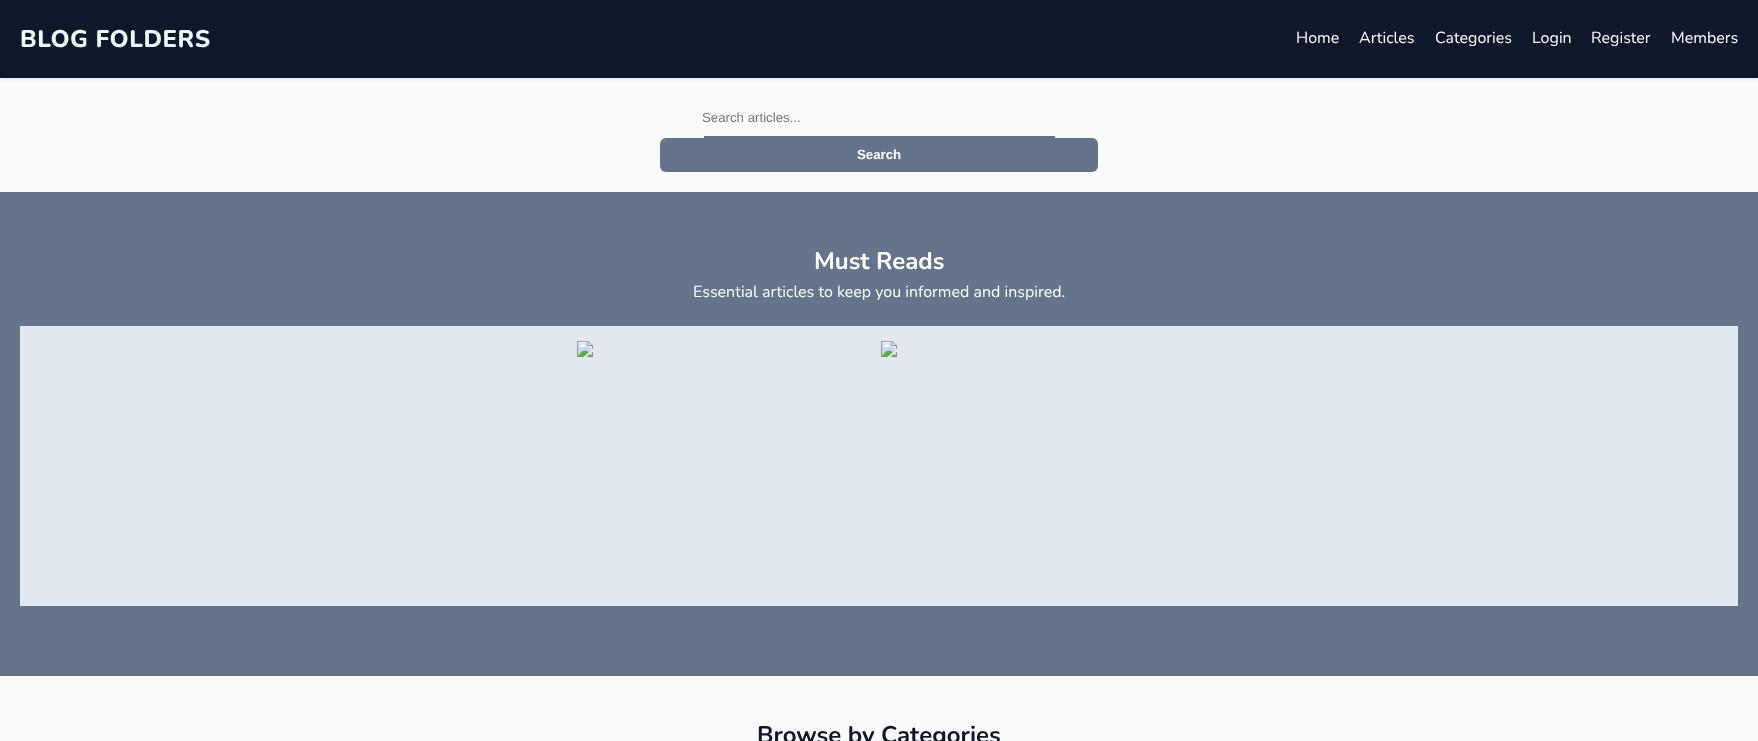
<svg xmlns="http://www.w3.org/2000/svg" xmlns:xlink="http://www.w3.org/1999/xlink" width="1758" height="741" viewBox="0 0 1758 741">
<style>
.cls-1{font:800 24px Nunito;letter-spacing:0.5px;fill:#f0f8ff}
.cls-2{font:16px Nunito;fill:#ffffff}
.cls-3{font:13.25px Liberation Sans;fill:#757575}
.cls-4{font:bold 13.25px Liberation Sans;fill:#ffffff}
.cls-5{font:bold 24px Nunito;fill:#ffffff}
.cls-6{font:bold 24px Nunito;fill:#0f172a}
</style>
<rect width="100%" height="100%" fill="#f8fafc"/>
<rect fill="#000000" fill-opacity="0.06" filter="blur(3px)" x="0" y="2" width="1758" height="78"/>
<rect fill="#0f172a" x="0" y="0" width="1758" height="78"/>
<rect fill="#64748b" x="704" y="136" width="351" height="2"/>
<rect fill="#64748b" x="660" y="138" width="438" height="34" rx="6"/>
<rect fill="#64748b" x="0" y="192" width="1758" height="484"/>
<rect fill="#e2e8f0" x="20" y="326" width="1718" height="280"/>
<image xlink:href="image0.png" x="577" y="341" width="16" height="16"/>
<image xlink:href="image0.png" x="881" y="341" width="16" height="16"/>
<text class="cls-1" x="20" y="47">BLOG FOLDERS</text>
<text class="cls-2" x="1296" y="43">Home</text>
<text class="cls-2" x="1359" y="43">Articles</text>
<text class="cls-2" x="1435" y="43">Categories</text>
<text class="cls-2" x="1532" y="43">Login</text>
<text class="cls-2" x="1591" y="43">Register</text>
<text class="cls-2" x="1671" y="43">Members</text>
<text class="cls-3" x="702" y="122">Search articles...</text>
<text class="cls-4" x="857" y="159">Search</text>
<text class="cls-5" x="814" y="269">Must Reads</text>
<text class="cls-2" x="693" y="297">Essential articles to keep you informed and inspired.</text>
<text class="cls-6" x="757" y="743">Browse by Categories</text>
</svg>
